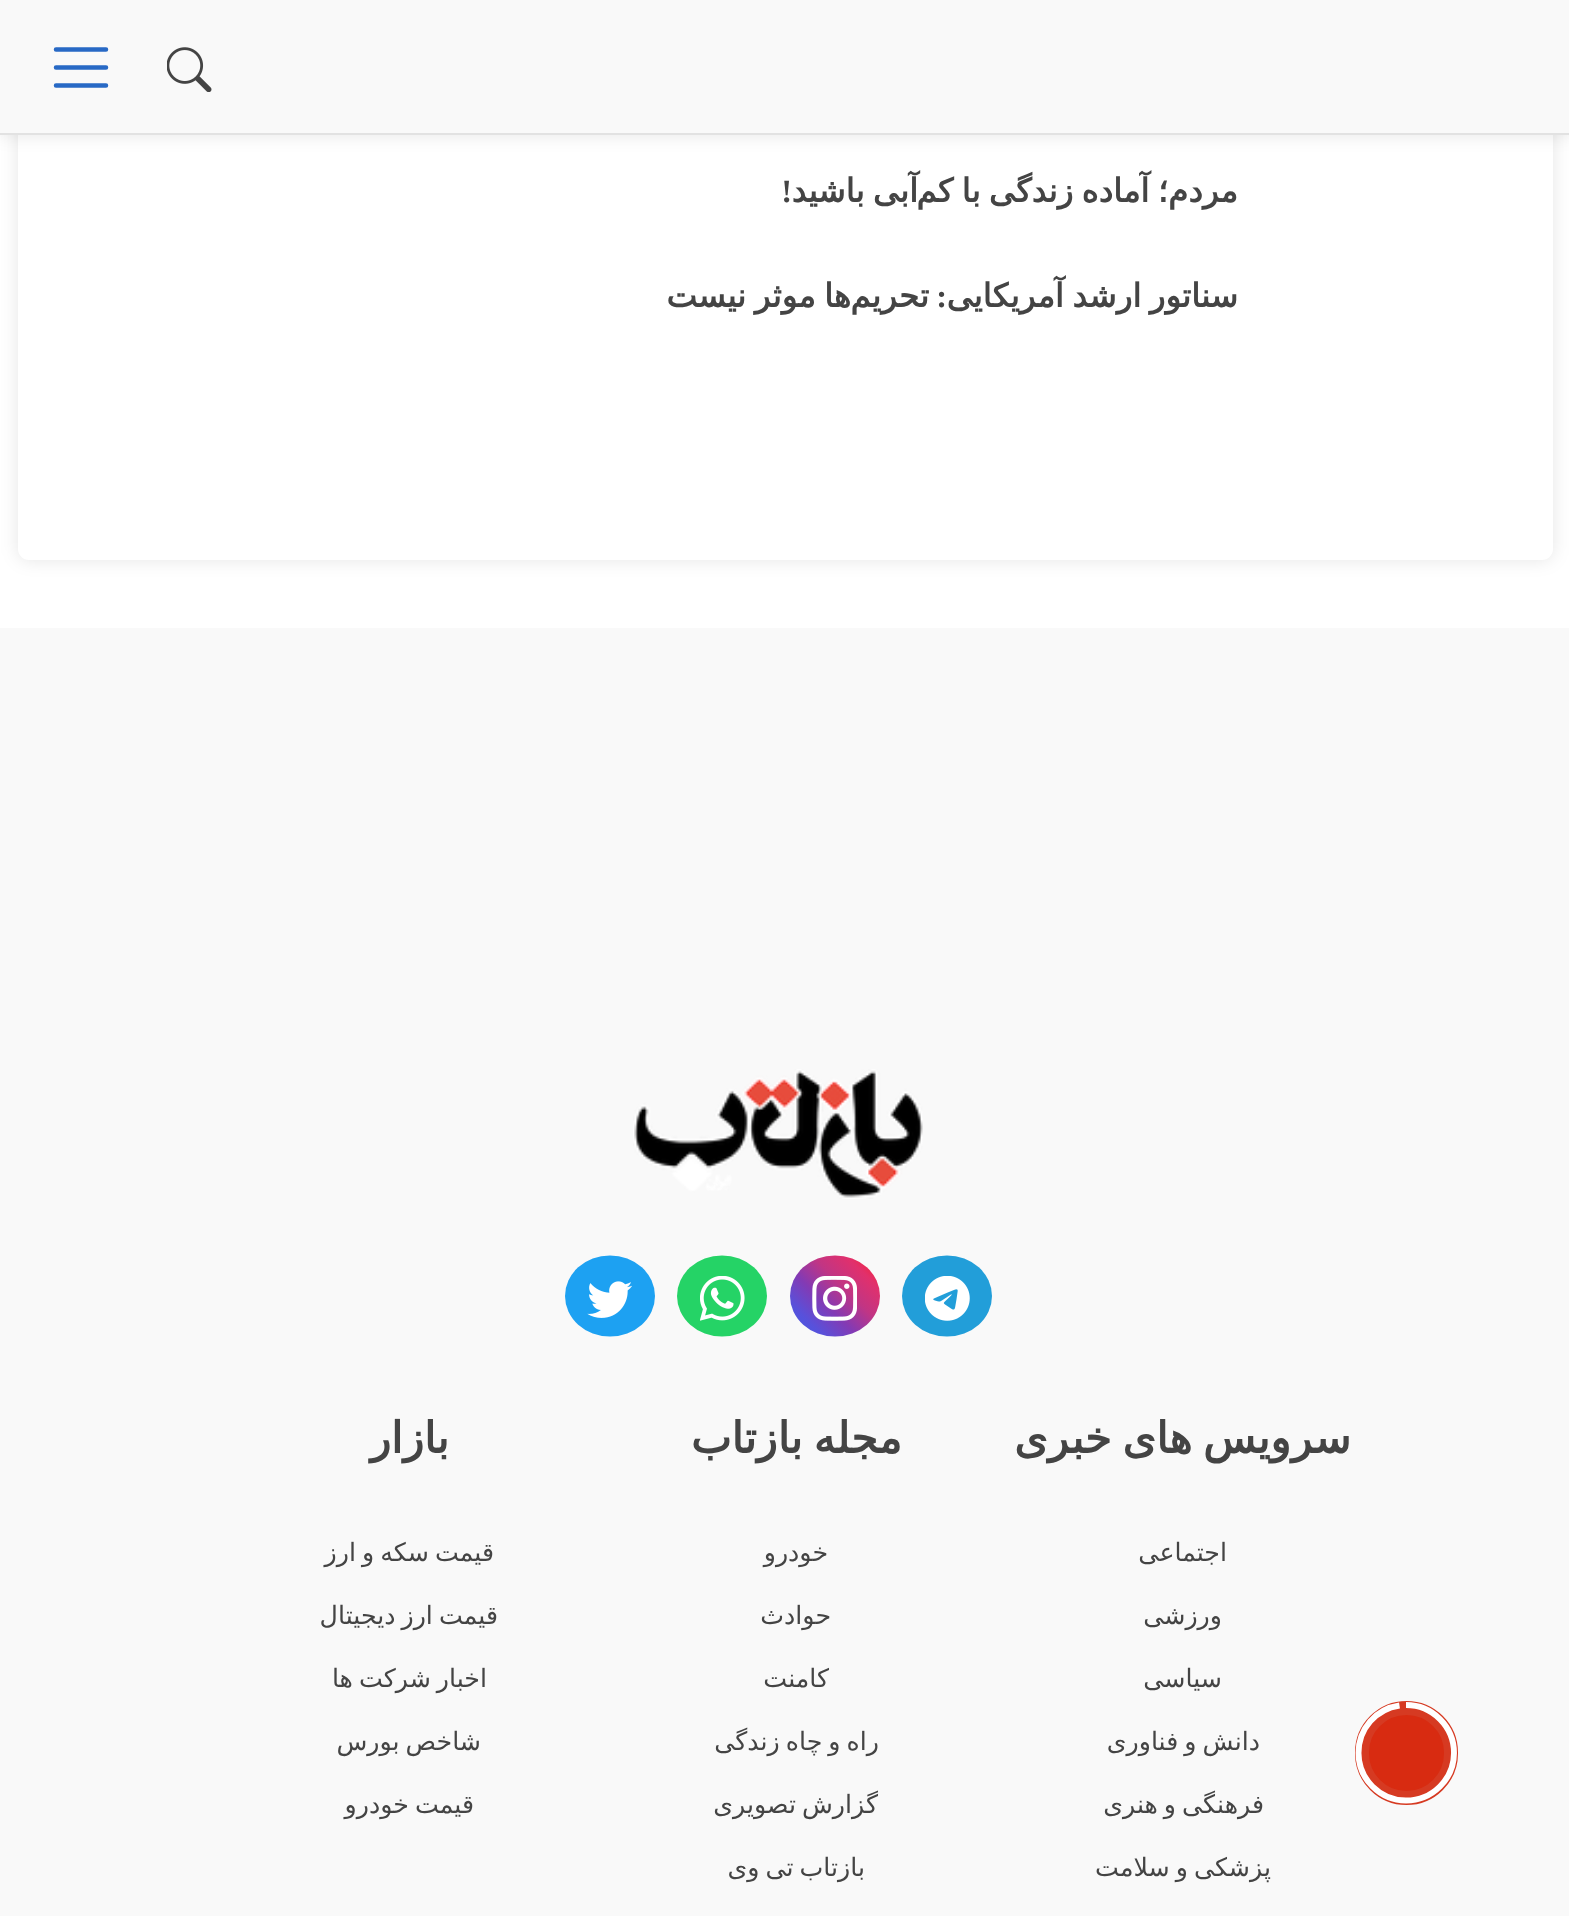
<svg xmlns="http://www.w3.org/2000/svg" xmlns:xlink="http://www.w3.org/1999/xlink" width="1569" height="1916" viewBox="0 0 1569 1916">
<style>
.cls-1{font:bold 32.5px DejaVu Sans;direction:rtl;fill:#444444}
.cls-2{font:bold 32.5px Liberation Serif;direction:rtl;fill:#444444}
.cls-3{font:bold 43.25px DejaVu Sans;direction:rtl;fill:#444444}
.cls-4{font:25.25px DejaVu Sans;direction:rtl;fill:#444444}
</style>
<defs>
<linearGradient id="g1" gradientUnits="userSpaceOnUse" x1="792" y1="1339" x2="878" y2="1253"><stop offset="0" stop-color="#405de6"/><stop offset="0.2" stop-color="#5851db"/><stop offset="0.4" stop-color="#833ab4"/><stop offset="0.6" stop-color="#c13584"/><stop offset="0.8" stop-color="#e1306c"/><stop offset="1" stop-color="#fd1d1d"/></linearGradient>
</defs>
<rect width="100%" height="100%" fill="#ffffff"/>
<rect fill="#000000" fill-opacity="0.1" filter="blur(9px)" x="18" y="-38" width="1535" height="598" rx="11"/>
<rect fill="#ffffff" x="18" y="-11" width="1535" height="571" rx="11"/>
<rect fill="#000000" fill-opacity="0.1" filter="blur(9px)" x="0" y="0" width="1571" height="135"/>
<rect fill="#f9f9f9" x="0" y="0" width="1569" height="133"/>
<rect fill="#e2e2e2" x="0" y="133" width="1569" height="2"/>
<image xlink:href="image0.png" x="167" y="47" width="45" height="45"/>
<path fill="none" stroke="#2869c5" stroke-width="4.5" stroke-linecap="round" d="M56 49.5H106M56 67.5H106M56 85.5H106"/>
<rect fill="#f9f9f9" x="0" y="628" width="1569" height="1288"/>
<rect fill="#d82b11" stroke="#d63a22" stroke-width="14" x="1362" y="1708" width="89" height="90" rx="44.5"/>
<path fill="none" stroke="#ffffff" stroke-width="5.9" d="M1406 1705C1432.5 1705 1454 1726.5 1454 1753C1454 1779 1432.5 1800.5 1406 1800.5C1380 1800.5 1358.5 1779 1358.5 1753C1358.5 1728.5 1376 1709 1399.5 1705.5"/>
<image xlink:href="image1.png" x="633" y="1069" width="290" height="130"/>
<ellipse fill="#229ed9" cx="947" cy="1296" rx="45" ry="40.5"/>
<image xlink:href="image2.png" x="925" y="1276" width="45" height="45"/>
<ellipse fill="url(#g1)" cx="835" cy="1296" rx="45" ry="40.5"/>
<image xlink:href="image3.png" x="812" y="1276" width="45" height="45"/>
<ellipse fill="#25d366" cx="722" cy="1296" rx="45" ry="40.5"/>
<image xlink:href="image4.png" x="700" y="1276" width="45" height="45"/>
<ellipse fill="#1da1f2" cx="610" cy="1296" rx="45" ry="40.5"/>
<image xlink:href="image5.png" x="587" y="1281" width="45" height="37"/>
<text class="cls-1" x="918" y="202" word-spacing="-2">آبی باشید</text>
<text class="cls-1" x="1238" y="202" word-spacing="-2">مردم؛ آماده زندگی با کم</text>
<text class="cls-2" x="792" y="202">!</text>
<text class="cls-1" x="1238" y="307" word-spacing="-2">سناتور ارشد آمریکایی</text>
<text class="cls-2" x="947" y="307">:</text>
<text class="cls-1" x="929" y="307">تحریم</text>
<text class="cls-1" x="851" y="307" word-spacing="-2">ها موثر نیست</text>
<text class="cls-3" x="1351" y="1453" word-spacing="-3">سرویس های خبری</text>
<text class="cls-4" x="1227" y="1561">اجتماعی</text>
<text class="cls-4" x="1222" y="1624">ورزشی</text>
<text class="cls-4" x="1222" y="1687">سیاسی</text>
<text class="cls-4" x="1260" y="1750" word-spacing="-2">دانش و فناوری</text>
<text class="cls-4" x="1264" y="1813" word-spacing="-2">فرهنگی و هنری</text>
<text class="cls-4" x="1271" y="1876" word-spacing="-2">پزشکی و سلامت</text>
<text class="cls-3" x="902" y="1453" word-spacing="-3">مجله بازتاب</text>
<text class="cls-4" x="828" y="1561">خودرو</text>
<text class="cls-4" x="831" y="1624">حوادث</text>
<text class="cls-4" x="829" y="1687">کامنت</text>
<text class="cls-4" x="879" y="1750" word-spacing="-2">راه و چاه زندگی</text>
<text class="cls-4" x="878" y="1813" word-spacing="-2">گزارش تصویری</text>
<text class="cls-4" x="865" y="1876" word-spacing="-2">بازتاب تی وی</text>
<text class="cls-3" x="449" y="1453">بازار</text>
<text class="cls-4" x="494" y="1561" word-spacing="-2">قیمت سکه و ارز</text>
<text class="cls-4" x="498" y="1624" word-spacing="-2">قیمت ارز دیجیتال</text>
<text class="cls-4" x="487" y="1687" word-spacing="-2">اخبار شرکت ها</text>
<text class="cls-4" x="481" y="1750" word-spacing="-2">شاخص بورس</text>
<text class="cls-4" x="474" y="1813" word-spacing="-2">قیمت خودرو</text>
</svg>
